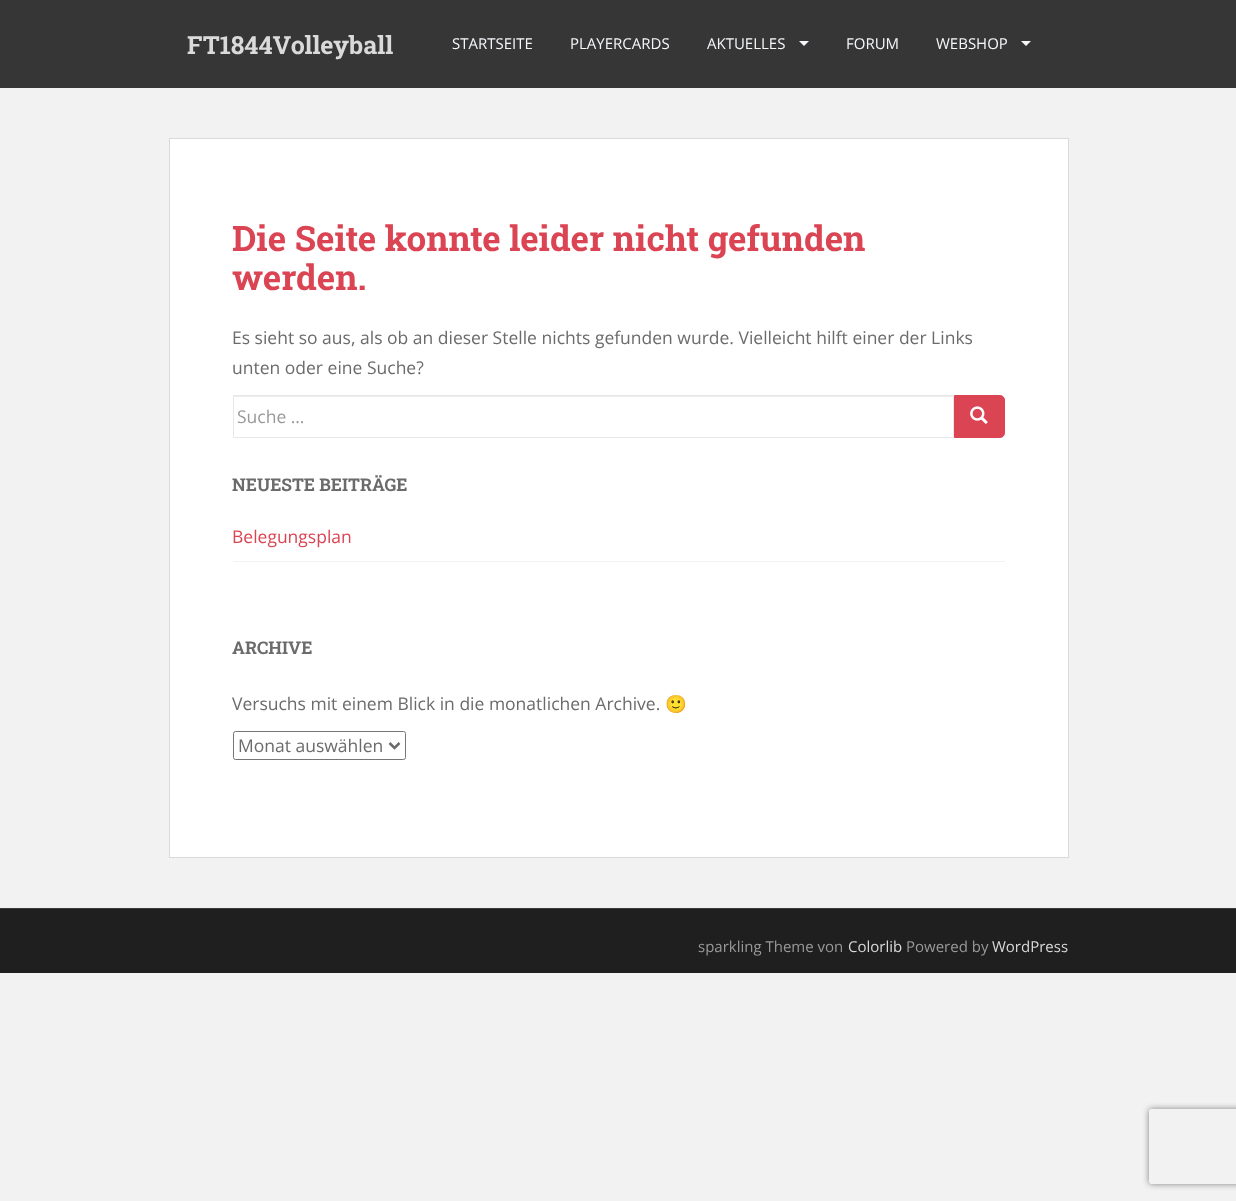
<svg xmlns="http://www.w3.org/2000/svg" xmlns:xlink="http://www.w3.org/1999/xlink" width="1236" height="1201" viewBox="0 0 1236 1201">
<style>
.cls-1{font:bold 25px Roboto Slab;fill:#dadada}
.cls-2{font:15px Open Sans;fill:#f5f7fa}
.cls-3{font:bold 35px Roboto Slab;fill:#da4453}
.cls-4{font:17.5px Open Sans;fill:#6b6b6b}
.cls-5{font:17.5px Open Sans;fill:#999999}
.cls-6{font:bold 17.5px Roboto Slab;fill:#6b6b6b}
.cls-7{font:17.5px Open Sans;fill:#da4453}
.cls-8{font:17.5px Noto Color Emoji;fill:#6b6b6b}
.cls-9{font:15px Open Sans;fill:#999999}
.cls-10{font:15px Open Sans;fill:#dadada}
</style>
<defs>
<clipPath id="clip1"><path d="M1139 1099H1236V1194H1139ZM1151.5 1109H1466.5C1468 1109 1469 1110 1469 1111.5V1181.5C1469 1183 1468 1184 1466.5 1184H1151.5C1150 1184 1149 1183 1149 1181.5V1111.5C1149 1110 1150 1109 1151.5 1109Z" clip-rule="evenodd"/></clipPath>
</defs>
<rect width="100%" height="100%" fill="#f2f2f2"/>
<rect fill="#363636" x="0" y="0" width="1236" height="88"/>
<path fill="#f5f7fa" d="M799 41H809L804 46Z"/>
<path fill="#f5f7fa" d="M1021 41H1031L1026 46Z"/>
<rect fill="#ffffff" stroke="#dadada" x="169.5" y="138.5" width="899" height="719"/>
<rect fill="#ececec" x="234" y="396" width="719" height="1"/>
<rect fill="none" stroke="#e8e8e8" x="233.5" y="395.5" width="720" height="42"/>
<path fill="#da4453" stroke="#da4453" d="M954.5 395.5H1000C1002.5 395.5 1004.5 397.5 1004.5 400V433C1004.5 435.5 1002.5 437.5 1000 437.5H954.5Z"/>
<image xlink:href="image0.png" x="970" y="406" width="18" height="18"/>
<rect fill="#f2f2f2" x="233" y="561" width="772" height="1"/>
<rect fill="none" stroke="#767676" x="233.5" y="731.5" width="172" height="28" rx="2"/>
<path fill="none" stroke="#6b6b6b" stroke-width="2.5" d="M389.5 743L394.5 748L399.5 743"/>
<rect fill="#1f1f1f" x="0" y="909" width="1236" height="64"/>
<rect fill="#3a3a3a" x="0" y="908" width="1236" height="1"/>
<g clip-path="url(#clip1)">
<rect fill="#808080" filter="blur(3px)" x="1149" y="1109" width="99" height="75" rx="2.5"/>
</g>
<text class="cls-1" x="187" y="54">FT1844Volleyball</text>
<text class="cls-2" x="452" y="49">STARTSEITE</text>
<text class="cls-2" x="570" y="49">PLAYERCARDS</text>
<text class="cls-2" x="707" y="49">AKTUELLES</text>
<text class="cls-2" x="846" y="49">FORUM</text>
<text class="cls-2" x="936" y="49">WEBSHOP</text>
<text class="cls-3"><tspan x="232" y="251">Die Seite konnte leider nicht gefunden</tspan><tspan x="232" y="290">werden.</tspan></text>
<text class="cls-4"><tspan x="232" y="344">Es sieht so aus, als ob an dieser Stelle nichts gefunden wurde. Vielleicht hilft einer der Links</tspan><tspan x="232" y="374">unten oder eine Suche?</tspan></text>
<text class="cls-5" x="237" y="423">Suche …</text>
<text class="cls-6" x="232" y="491">NEUESTE BEITRÄGE</text>
<text class="cls-7" x="232" y="543">Belegungsplan</text>
<text class="cls-6" x="232" y="654">ARCHIVE</text>
<text class="cls-4" x="232" y="710">Versuchs mit einem Blick in die monatlichen Archive.</text>
<text class="cls-8" x="665" y="710">🙂</text>
<text class="cls-4" x="238" y="752">Monat auswählen</text>
<text class="cls-9" x="698" y="952">sparkling Theme von</text>
<text class="cls-10" x="848" y="952">Colorlib</text>
<text class="cls-9" x="906" y="952">Powered by</text>
<text class="cls-10" x="992" y="952">WordPress</text>
</svg>
